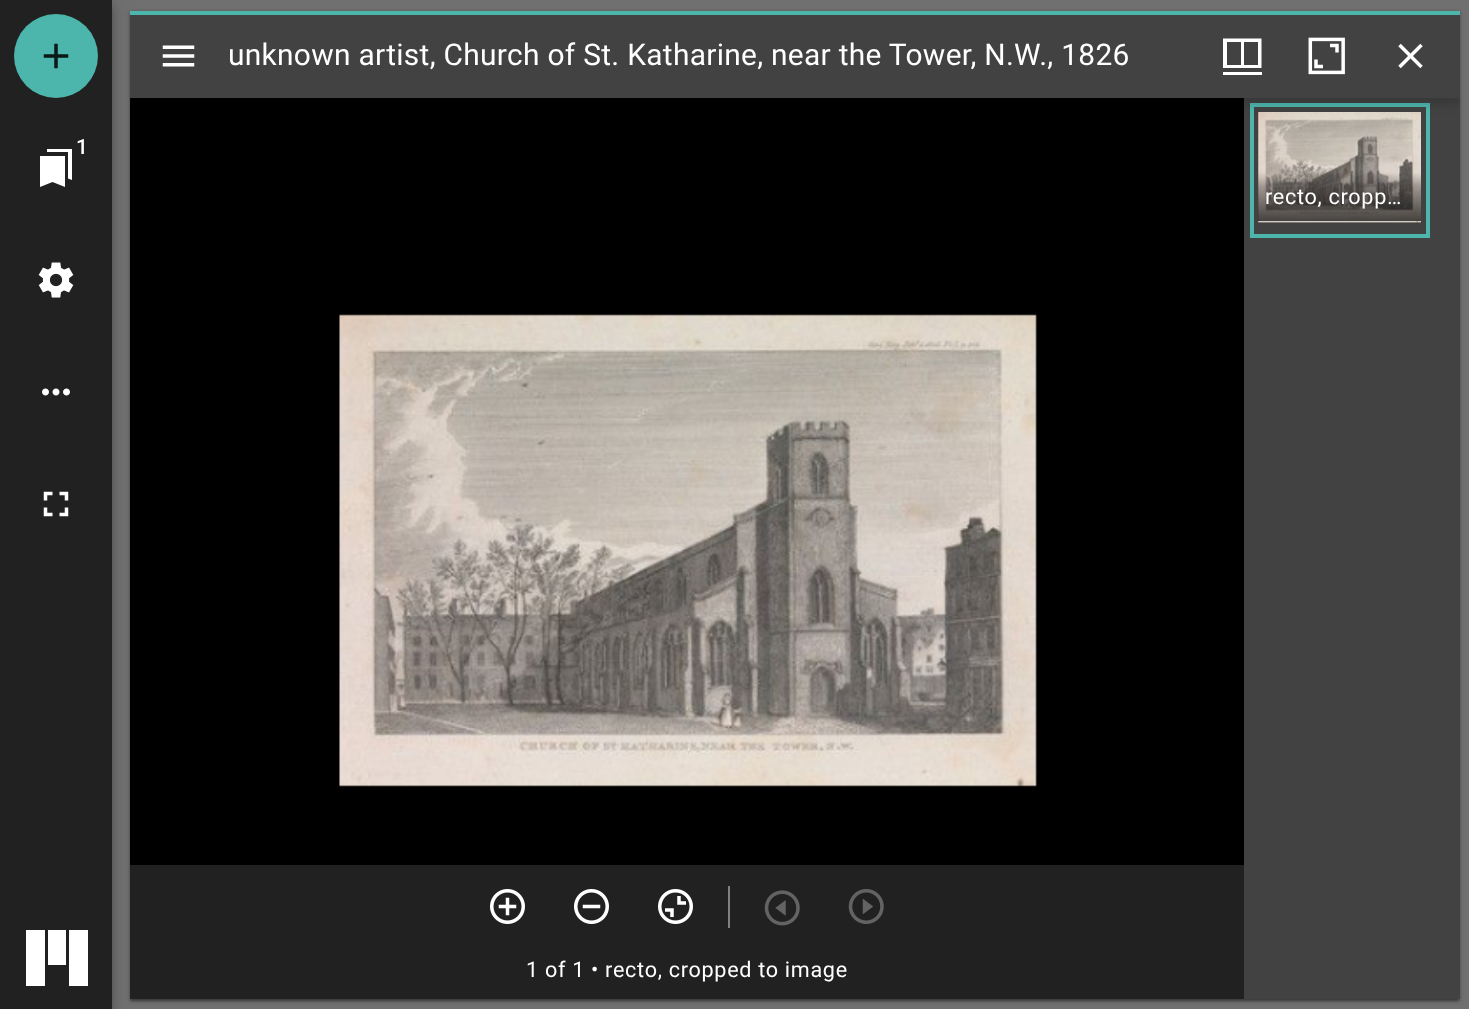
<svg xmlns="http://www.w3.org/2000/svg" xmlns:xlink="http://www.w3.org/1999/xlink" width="1469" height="1009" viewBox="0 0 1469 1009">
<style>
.cls-1{font:500 21px Roboto;fill:#ffffff}
.cls-2{font:29.9px Roboto;letter-spacing:0.3px;fill:#ffffff}
.cls-3{font:21.6px Roboto;letter-spacing:0.7px;fill:#ffffff}
</style>
<defs>
<clipPath id="clip1"><rect x="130" y="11" width="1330" height="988"/></clipPath>
<linearGradient id="g1" gradientUnits="userSpaceOnUse" x1="1340" y1="221" x2="1340" y2="172"><stop offset="0" stop-color="#000000" stop-opacity="0.7"/><stop offset="0.7" stop-color="#000000" stop-opacity="0.3"/><stop offset="1" stop-color="#000000" stop-opacity="0"/></linearGradient>
</defs>
<rect width="100%" height="100%" fill="#707070"/>
<rect fill="#000000" fill-opacity="0.2" filter="blur(1px)" x="131" y="16" width="1327" height="985"/>
<rect fill="#000000" fill-opacity="0.2" filter="blur(1px)" x="130" y="12" width="1330" height="989"/>
<rect fill="#000000" fill-opacity="0.2" filter="blur(2.5px)" x="130" y="12" width="1330" height="989"/>
<rect fill="#000000" x="130" y="98" width="1114" height="767"/>
<rect fill="#424242" x="1244" y="98" width="216" height="901"/>
<rect fill="none" stroke="#4db6ac" stroke-width="4" x="1252" y="105" width="176" height="131"/>
<image xlink:href="image7.png" x="1258" y="112" width="163" height="111"/>
<g clip-path="url(#clip1)">
<rect fill="#000000" fill-opacity="0.14" filter="blur(4.5px)" x="130" y="18" width="1330" height="87"/>
</g>
<rect fill="#424242" x="130" y="15" width="1330" height="83"/>
<rect fill="#4db6ac" x="130" y="11" width="1330" height="4"/>
<rect fill="#212121" x="130" y="865" width="1114" height="134"/>
<rect fill="#000000" fill-opacity="0.12" filter="blur(9px)" x="0" y="2" width="112" height="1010"/>
<rect fill="#000000" fill-opacity="0.14" filter="blur(4.5px)" x="0" y="7" width="112" height="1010"/>
<rect fill="#000000" fill-opacity="0.2" filter="blur(3.5px)" x="2" y="5" width="108" height="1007"/>
<rect fill="#212121" x="0" y="0" width="112" height="1009"/>
<circle fill="#4db6ac" cx="56" cy="56" r="42"/>
<image xlink:href="image0.png" x="43" y="43" width="26" height="26"/>
<path fill="#ffffff" d="M68 178.5L72 180V149H47V152H68ZM65 156H40V187L52.5 182L65 187Z"/>
<image xlink:href="image1.png" x="38" y="262" width="36" height="36"/>
<image xlink:href="image2.png" x="42" y="388" width="28" height="8"/>
<image xlink:href="image3.png" x="43" y="491" width="26" height="26"/>
<rect fill="#ffffff" x="26" y="930" width="19" height="56"/>
<rect fill="#ffffff" x="69" y="930" width="19" height="56"/>
<rect fill="#ffffff" x="48" y="930" width="18" height="35"/>
<image xlink:href="image4.png" x="162" y="45" width="33" height="22"/>
<rect fill="#ffffff" x="1223" y="72" width="39" height="3"/>
<path fill="#ffffff" d="M1223 38.5V68H1261.5V38.5ZM1227 65V42H1241V65ZM1258 65H1244V42H1258Z"/>
<image xlink:href="image5.png" x="1308" y="37" width="37" height="38"/>
<image xlink:href="image6.png" x="1398" y="43" width="25" height="26"/>
<rect fill="url(#g1)" x="1258" y="173" width="163" height="48"/>
<image xlink:href="image8.png" x="339" y="314" width="698" height="473"/>
<image xlink:href="image9.png" x="490" y="889" width="35" height="35"/>
<image xlink:href="image10.png" x="574" y="889" width="35" height="35"/>
<image xlink:href="image11.png" x="658" y="889" width="35" height="35"/>
<rect fill="#808080" x="728" y="886" width="2" height="42"/>
<image xlink:href="image12.png" x="764" y="890" width="36" height="36"/>
<image xlink:href="image13.png" x="848" y="889" width="36" height="35"/>
<text class="cls-1" x="76" y="154">1</text>
<text class="cls-2" x="228" y="65">unknown artist, Church of St. Katharine, near the Tower, N.W., 1826</text>
<text class="cls-3" x="1265" y="204">recto, cropp…</text>
<text class="cls-3" x="526" y="977">1 of 1 • recto, cropped to image</text>
</svg>
